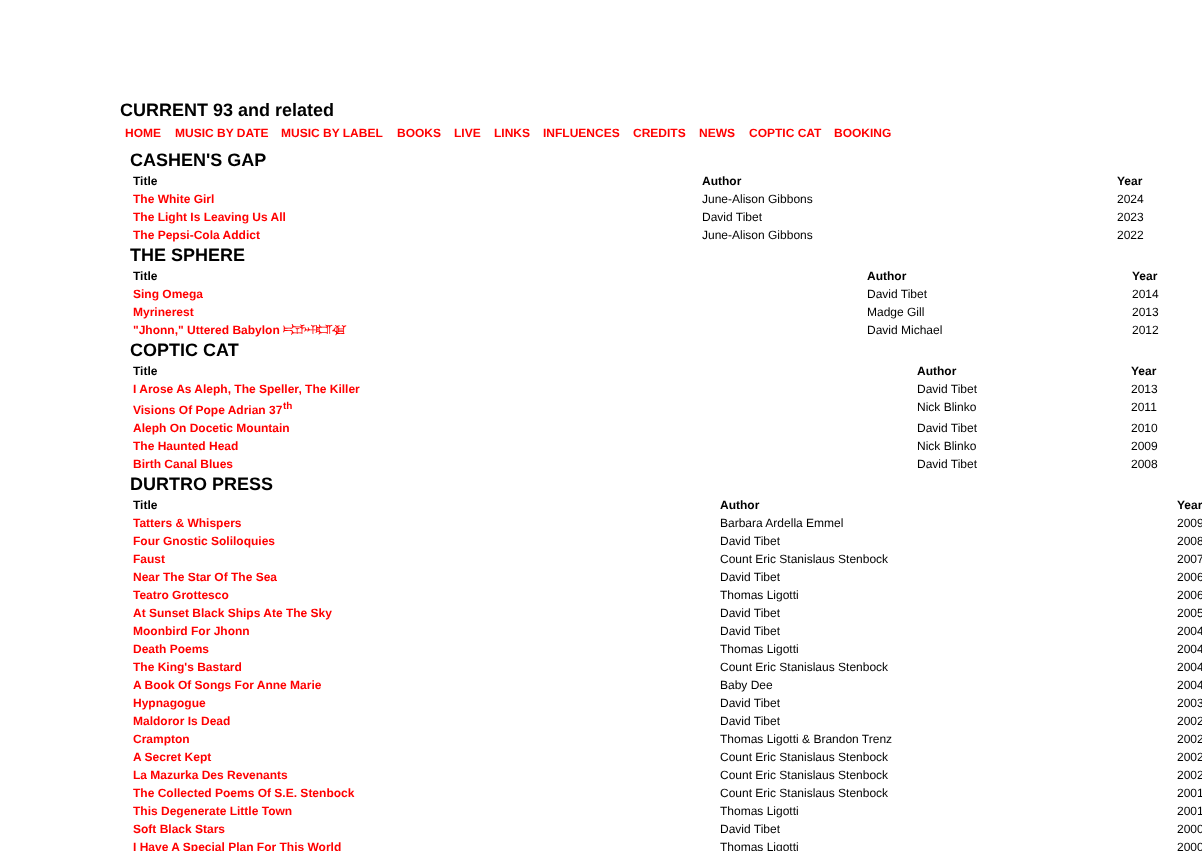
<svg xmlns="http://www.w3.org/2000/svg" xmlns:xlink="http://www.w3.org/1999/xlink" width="1202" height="851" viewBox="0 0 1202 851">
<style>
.cls-1{font:bold 18px Liberation Sans;fill:#000000}
.cls-2{font:bold 12px Liberation Sans;fill:#ff0000}
.cls-3{font:bold 12px Liberation Sans;fill:#000000}
.cls-4{font:12px Liberation Sans;fill:#000000}
.cls-5{font:bold 12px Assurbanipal;fill:#ff0000}
.cls-6{font:bold 10px Liberation Sans;fill:#ff0000}
</style>
<rect width="100%" height="100%" fill="#ffffff"/>
<text class="cls-1" x="120" y="116">CURRENT 93 and related</text>
<text class="cls-2" x="125" y="137">HOME</text>
<text class="cls-2" x="175" y="137">MUSIC BY DATE</text>
<text class="cls-2" x="281" y="137">MUSIC BY LABEL</text>
<text class="cls-2" x="397" y="137">BOOKS</text>
<text class="cls-2" x="454" y="137">LIVE</text>
<text class="cls-2" x="494" y="137">LINKS</text>
<text class="cls-2" x="543" y="137">INFLUENCES</text>
<text class="cls-2" x="633" y="137">CREDITS</text>
<text class="cls-2" x="699" y="137">NEWS</text>
<text class="cls-2" x="749" y="137">COPTIC CAT</text>
<text class="cls-2" x="834" y="137">BOOKING</text>
<text class="cls-1" x="130" y="166">CASHEN'S GAP</text>
<text class="cls-3" x="133" y="185">Title</text>
<text class="cls-3" x="702" y="185">Author</text>
<text class="cls-3" x="1117" y="185">Year</text>
<text class="cls-2" x="133" y="203">The White Girl</text>
<text class="cls-4" x="702" y="203">June-Alison Gibbons</text>
<text class="cls-4" x="1117" y="203">2024</text>
<text class="cls-2" x="133" y="221">The Light Is Leaving Us All</text>
<text class="cls-4" x="702" y="221">David Tibet</text>
<text class="cls-4" x="1117" y="221">2023</text>
<text class="cls-2" x="133" y="239">The Pepsi-Cola Addict</text>
<text class="cls-4" x="702" y="239">June-Alison Gibbons</text>
<text class="cls-4" x="1117" y="239">2022</text>
<text class="cls-1" x="130" y="261">THE SPHERE</text>
<text class="cls-3" x="133" y="280">Title</text>
<text class="cls-3" x="867" y="280">Author</text>
<text class="cls-3" x="1132" y="280">Year</text>
<text class="cls-2" x="133" y="298">Sing Omega</text>
<text class="cls-4" x="867" y="298">David Tibet</text>
<text class="cls-4" x="1132" y="298">2014</text>
<text class="cls-2" x="133" y="316">Myrinerest</text>
<text class="cls-4" x="867" y="316">Madge Gill</text>
<text class="cls-4" x="1132" y="316">2013</text>
<text class="cls-2" x="133" y="334">"Jhonn," Uttered Babylon</text>
<text class="cls-5" x="283" y="334">𒆍𒀭𒊏𒆠</text>
<text class="cls-4" x="867" y="334">David Michael</text>
<text class="cls-4" x="1132" y="334">2012</text>
<text class="cls-1" x="130" y="356">COPTIC CAT</text>
<text class="cls-3" x="133" y="375">Title</text>
<text class="cls-3" x="917" y="375">Author</text>
<text class="cls-3" x="1131" y="375">Year</text>
<text class="cls-2" x="133" y="393">I Arose As Aleph, The Speller, The Killer</text>
<text class="cls-4" x="917" y="393">David Tibet</text>
<text class="cls-4" x="1131" y="393">2013</text>
<text class="cls-2" x="133" y="414">Visions Of Pope Adrian 37</text>
<text class="cls-6" x="283" y="409">th</text>
<text class="cls-4" x="917" y="411">Nick Blinko</text>
<text class="cls-4" x="1131" y="411">2011</text>
<text class="cls-2" x="133" y="432">Aleph On Docetic Mountain</text>
<text class="cls-4" x="917" y="432">David Tibet</text>
<text class="cls-4" x="1131" y="432">2010</text>
<text class="cls-2" x="133" y="450">The Haunted Head</text>
<text class="cls-4" x="917" y="450">Nick Blinko</text>
<text class="cls-4" x="1131" y="450">2009</text>
<text class="cls-2" x="133" y="468">Birth Canal Blues</text>
<text class="cls-4" x="917" y="468">David Tibet</text>
<text class="cls-4" x="1131" y="468">2008</text>
<text class="cls-1" x="130" y="490">DURTRO PRESS</text>
<text class="cls-3" x="133" y="509">Title</text>
<text class="cls-3" x="720" y="509">Author</text>
<text class="cls-3" x="1177" y="509">Year</text>
<text class="cls-2" x="133" y="527">Tatters &amp; Whispers</text>
<text class="cls-4" x="720" y="527">Barbara Ardella Emmel</text>
<text class="cls-4" x="1177" y="527">2009</text>
<text class="cls-2" x="133" y="545">Four Gnostic Soliloquies</text>
<text class="cls-4" x="720" y="545">David Tibet</text>
<text class="cls-4" x="1177" y="545">2008</text>
<text class="cls-2" x="133" y="563">Faust</text>
<text class="cls-4" x="720" y="563">Count Eric Stanislaus Stenbock</text>
<text class="cls-4" x="1177" y="563">2007</text>
<text class="cls-2" x="133" y="581">Near The Star Of The Sea</text>
<text class="cls-4" x="720" y="581">David Tibet</text>
<text class="cls-4" x="1177" y="581">2006</text>
<text class="cls-2" x="133" y="599">Teatro Grottesco</text>
<text class="cls-4" x="720" y="599">Thomas Ligotti</text>
<text class="cls-4" x="1177" y="599">2006</text>
<text class="cls-2" x="133" y="617">At Sunset Black Ships Ate The Sky</text>
<text class="cls-4" x="720" y="617">David Tibet</text>
<text class="cls-4" x="1177" y="617">2005</text>
<text class="cls-2" x="133" y="635">Moonbird For Jhonn</text>
<text class="cls-4" x="720" y="635">David Tibet</text>
<text class="cls-4" x="1177" y="635">2004</text>
<text class="cls-2" x="133" y="653">Death Poems</text>
<text class="cls-4" x="720" y="653">Thomas Ligotti</text>
<text class="cls-4" x="1177" y="653">2004</text>
<text class="cls-2" x="133" y="671">The King's Bastard</text>
<text class="cls-4" x="720" y="671">Count Eric Stanislaus Stenbock</text>
<text class="cls-4" x="1177" y="671">2004</text>
<text class="cls-2" x="133" y="689">A Book Of Songs For Anne Marie</text>
<text class="cls-4" x="720" y="689">Baby Dee</text>
<text class="cls-4" x="1177" y="689">2004</text>
<text class="cls-2" x="133" y="707">Hypnagogue</text>
<text class="cls-4" x="720" y="707">David Tibet</text>
<text class="cls-4" x="1177" y="707">2003</text>
<text class="cls-2" x="133" y="725">Maldoror Is Dead</text>
<text class="cls-4" x="720" y="725">David Tibet</text>
<text class="cls-4" x="1177" y="725">2002</text>
<text class="cls-2" x="133" y="743">Crampton</text>
<text class="cls-4" x="720" y="743">Thomas Ligotti &amp; Brandon Trenz</text>
<text class="cls-4" x="1177" y="743">2002</text>
<text class="cls-2" x="133" y="761">A Secret Kept</text>
<text class="cls-4" x="720" y="761">Count Eric Stanislaus Stenbock</text>
<text class="cls-4" x="1177" y="761">2002</text>
<text class="cls-2" x="133" y="779">La Mazurka Des Revenants</text>
<text class="cls-4" x="720" y="779">Count Eric Stanislaus Stenbock</text>
<text class="cls-4" x="1177" y="779">2002</text>
<text class="cls-2" x="133" y="797">The Collected Poems Of S.E. Stenbock</text>
<text class="cls-4" x="720" y="797">Count Eric Stanislaus Stenbock</text>
<text class="cls-4" x="1177" y="797">2001</text>
<text class="cls-2" x="133" y="815">This Degenerate Little Town</text>
<text class="cls-4" x="720" y="815">Thomas Ligotti</text>
<text class="cls-4" x="1177" y="815">2001</text>
<text class="cls-2" x="133" y="833">Soft Black Stars</text>
<text class="cls-4" x="720" y="833">David Tibet</text>
<text class="cls-4" x="1177" y="833">2000</text>
<text class="cls-2" x="133" y="851">I Have A Special Plan For This World</text>
<text class="cls-4" x="720" y="851">Thomas Ligotti</text>
<text class="cls-4" x="1177" y="851">2000</text>
</svg>
